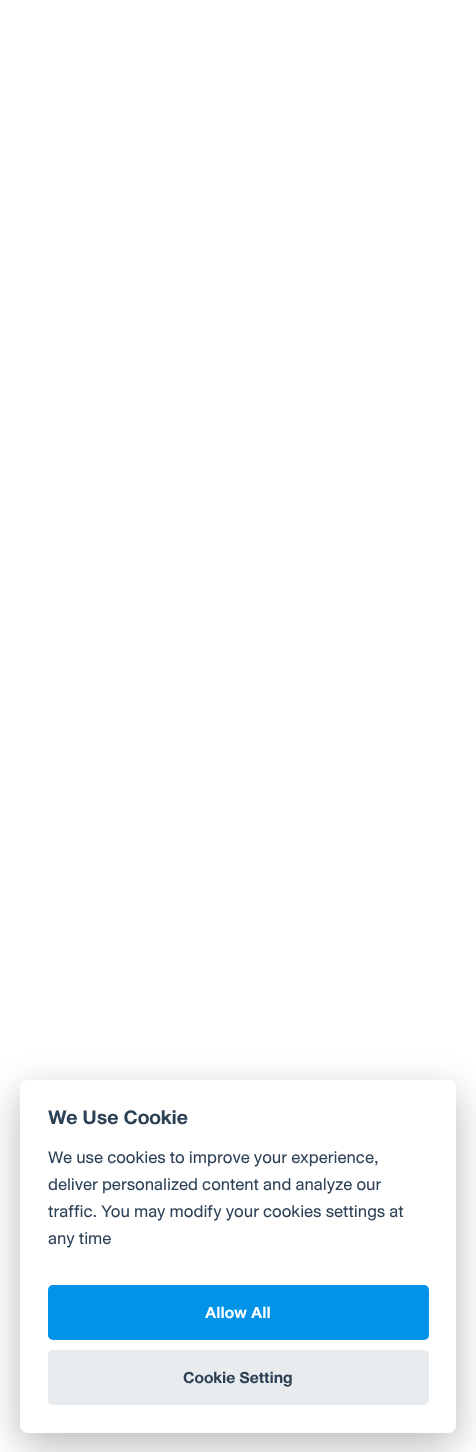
<svg xmlns="http://www.w3.org/2000/svg" xmlns:xlink="http://www.w3.org/1999/xlink" width="476" height="1452" viewBox="0 0 476 1452">
<style>
.cls-1{font:bold 21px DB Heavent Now;fill:#2d4156}
.cls-2{font:18px DB Heavent Now;fill:#2d4156}
.cls-3{font:bold 17px DB Heavent Now;fill:#ffffff}
.cls-4{font:bold 17px DB Heavent Now;fill:#2d4156}
</style>
<rect width="100%" height="100%" fill="#ffffff"/>
<rect fill="#020203" fill-opacity="0.28" filter="blur(19px)" x="20" y="1093" width="436" height="352" rx="8"/>
<rect fill="#ffffff" x="20" y="1080" width="436" height="353" rx="8"/>
<rect fill="#0093e8" x="48" y="1285" width="381" height="55" rx="5"/>
<rect fill="#e9ecee" x="48" y="1350" width="381" height="55" rx="5"/>
<text class="cls-1" x="48" y="1124">We Use Cookie</text>
<text class="cls-2"><tspan x="48" y="1163">We use cookies to improve your experience,</tspan><tspan x="48" y="1190">deliver personalized content and analyze our</tspan><tspan x="48" y="1217">traffic. You may modify your cookies settings at</tspan><tspan x="48" y="1244">any time</tspan></text>
<text class="cls-3" x="205" y="1318">Allow All</text>
<text class="cls-4" x="183" y="1383">Cookie Setting</text>
</svg>
